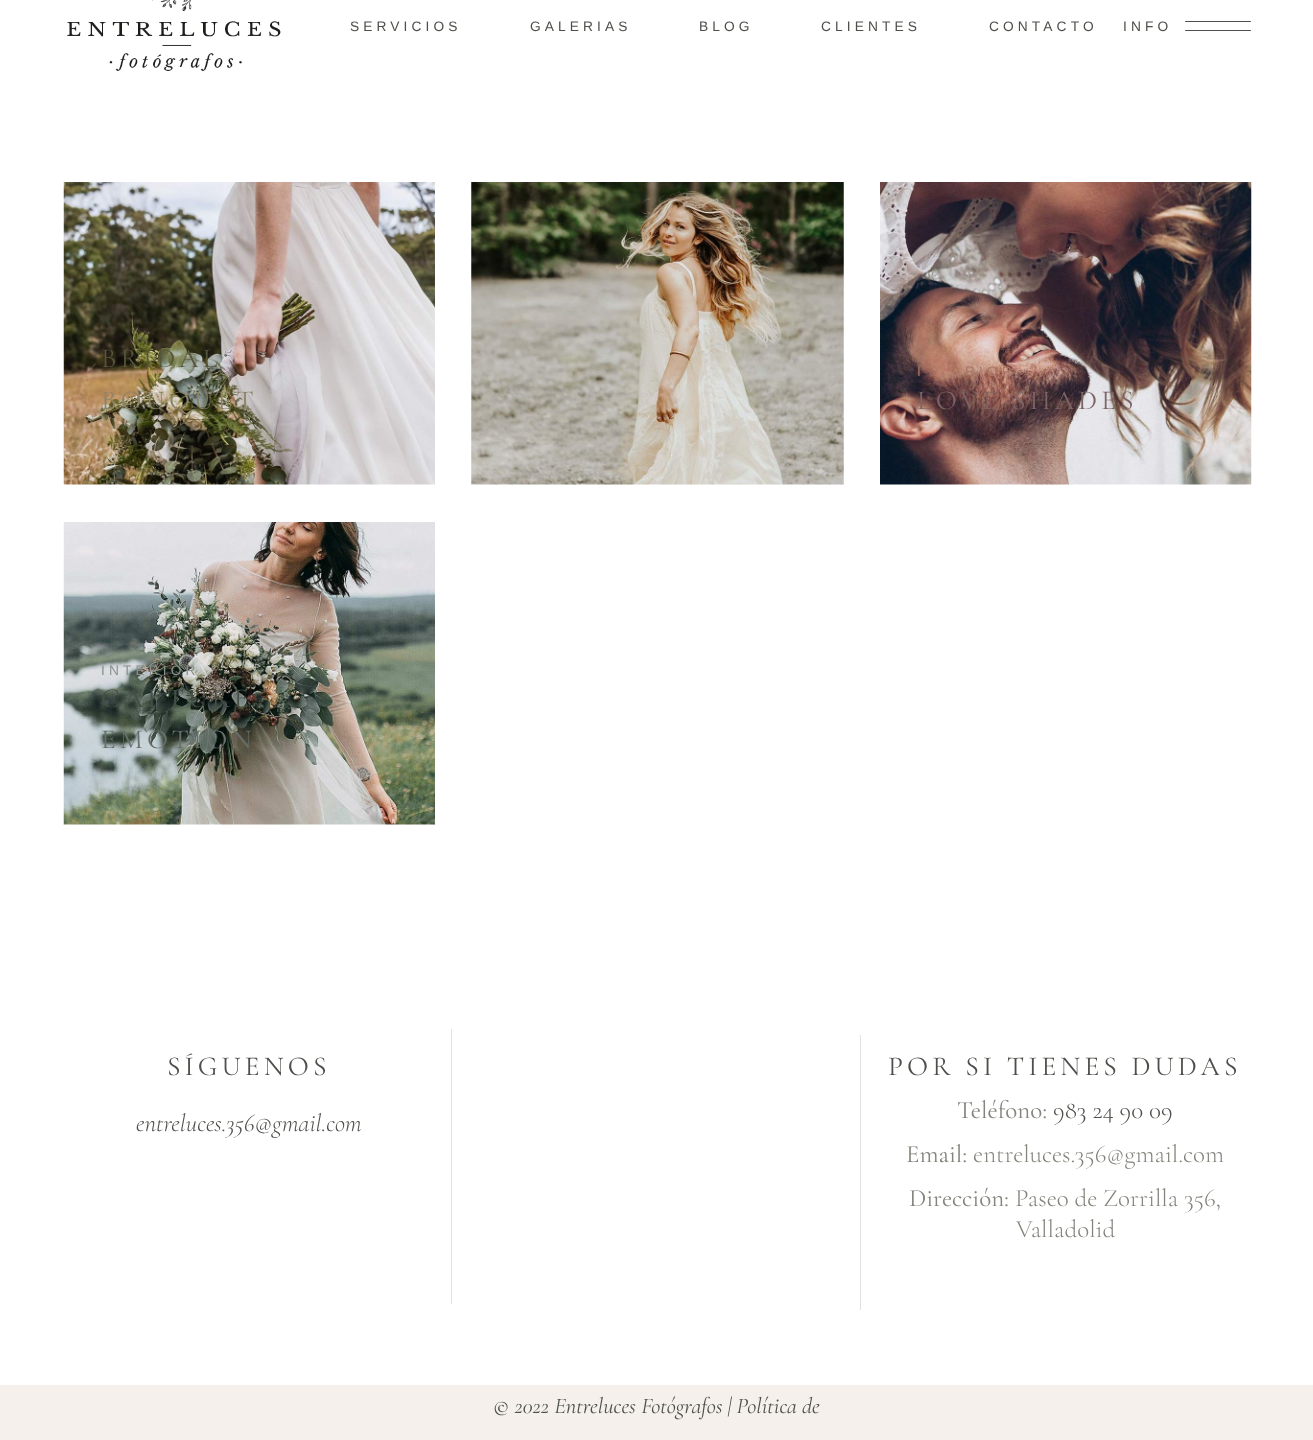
<svg xmlns="http://www.w3.org/2000/svg" xmlns:xlink="http://www.w3.org/1999/xlink" width="1313" height="1440" viewBox="0 0 1313 1440">
<style>
.cls-1{font:13.75px Liberation Sans;letter-spacing:4.1px;fill:#4d504a}
.cls-2{font:27.5px Cormorant Garamond;letter-spacing:4.1px;fill:#55553b}
.cls-3{font:27.5px Cormorant Garamond;letter-spacing:4.1px;fill:#8d8468}
.cls-4{font:13.75px Liberation Sans;letter-spacing:4.1px;fill:#aa7769}
.cls-5{font:27.5px Cormorant Garamond;letter-spacing:4.1px;fill:#7d6465}
.cls-6{font:13.75px Liberation Sans;letter-spacing:4.1px;fill:#8c918d}
.cls-7{font:27.5px Cormorant Garamond;letter-spacing:4.1px;fill:#464f47}
.cls-8{font:27.5px Cormorant Garamond;letter-spacing:4.1px;fill:#67706a}
.cls-9{font:27.5px Cormorant Garamond;letter-spacing:4.1px;fill:#4d504a}
.cls-10{font:italic 300 25px Cormorant Garamond;fill:#4d504a}
.cls-11{font:25px Cormorant Garamond;fill:#84847c}
.cls-12{font:300 25px Cormorant Garamond;fill:#4d504a}
.cls-13{font:300 25px Cormorant Garamond;fill:#84847c}
.cls-14{font:italic 22.5px Cormorant Garamond;fill:#4d504a}
</style>
<rect width="100%" height="100%" fill="#ffffff"/>
<image xlink:href="image0.png" x="67" y="0" width="214" height="71"/>
<rect fill="#4d504a" x="1185" y="21" width="66" height="1" rx="0.5"/>
<rect fill="#4d504a" x="1185" y="30" width="66" height="1" rx="0.5"/>
<image xlink:href="image1.png" x="63" y="182" width="372" height="303"/>
<image xlink:href="image2.png" x="471" y="182" width="373" height="303"/>
<image xlink:href="image3.png" x="880" y="182" width="372" height="303"/>
<image xlink:href="image4.png" x="63" y="522" width="372" height="303"/>
<rect fill="#e1e1e1" x="451" y="1029" width="1" height="275"/>
<rect fill="#e1e1e1" x="860" y="1035" width="1" height="275"/>
<rect fill="#f5f0eb" x="0" y="1385" width="1313" height="55"/>
<text class="cls-1" x="350" y="31">SERVICIOS</text>
<text class="cls-1" x="530" y="31">GALERIAS</text>
<text class="cls-1" x="699" y="31">BLOG</text>
<text class="cls-1" x="821" y="31">CLIENTES</text>
<text class="cls-1" x="989" y="31">CONTACTO</text>
<text class="cls-1" x="1123" y="31">INFO</text>
<text class="cls-2" x="101" y="367">BRIDAL</text>
<text class="cls-3" x="101" y="409">BOUQUET</text>
<text class="cls-4" x="917" y="376">I</text>
<text class="cls-4" x="965" y="376">RIOR</text>
<text class="cls-5" x="917" y="409">LOVE SHADES</text>
<text class="cls-6" x="101" y="675">INTERIOR</text>
<text class="cls-7" x="101" y="707">CAPTURE</text>
<text class="cls-8" x="101" y="748">EMOTION</text>
<text class="cls-9" x="167" y="1075">SÍGUENOS</text>
<text class="cls-10" x="136" y="1131">entreluces.356@gmail.com</text>
<text class="cls-9" x="888" y="1075">POR SI TIENES DUDAS</text>
<text class="cls-11" x="957" y="1118">Teléfono:</text>
<text class="cls-12" x="1053" y="1118">983 24 90 09</text>
<text class="cls-11" x="906" y="1162">Email:</text>
<text class="cls-13" x="973" y="1162">entreluces.356@gmail.com</text>
<text class="cls-11" x="909" y="1206">Dirección:</text>
<text class="cls-13" x="1015" y="1206">Paseo de Zorrilla 356,</text>
<text class="cls-13" x="1016" y="1237">Valladolid</text>
<text class="cls-14" x="493" y="1413">© 2022 Entreluces Fotógrafos | Política de</text>
</svg>
